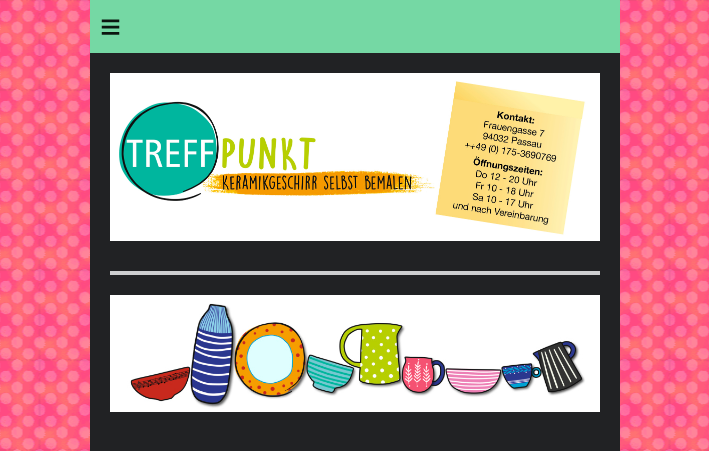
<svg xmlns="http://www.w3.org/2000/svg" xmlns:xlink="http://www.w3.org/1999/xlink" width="709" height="451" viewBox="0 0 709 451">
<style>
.cls-1{font:36px Liberation Sans;letter-spacing:10px;fill:#0c1610}
</style>
<rect width="100%" height="100%" fill="#ffffff"/>
<image xlink:href="image0.png" x="0" y="0" width="709" height="451"/>
<rect fill="#75d8a4" x="90" y="0" width="530" height="53"/>
<rect fill="#212224" x="90" y="53" width="530" height="398"/>
<image xlink:href="image1.png" x="110" y="73" width="490" height="168"/>
<rect fill="#cdced0" x="110" y="271" width="490" height="4"/>
<image xlink:href="image2.png" x="110" y="295" width="490" height="117"/>
<text class="cls-1" x="100" y="39">≡</text>
</svg>
